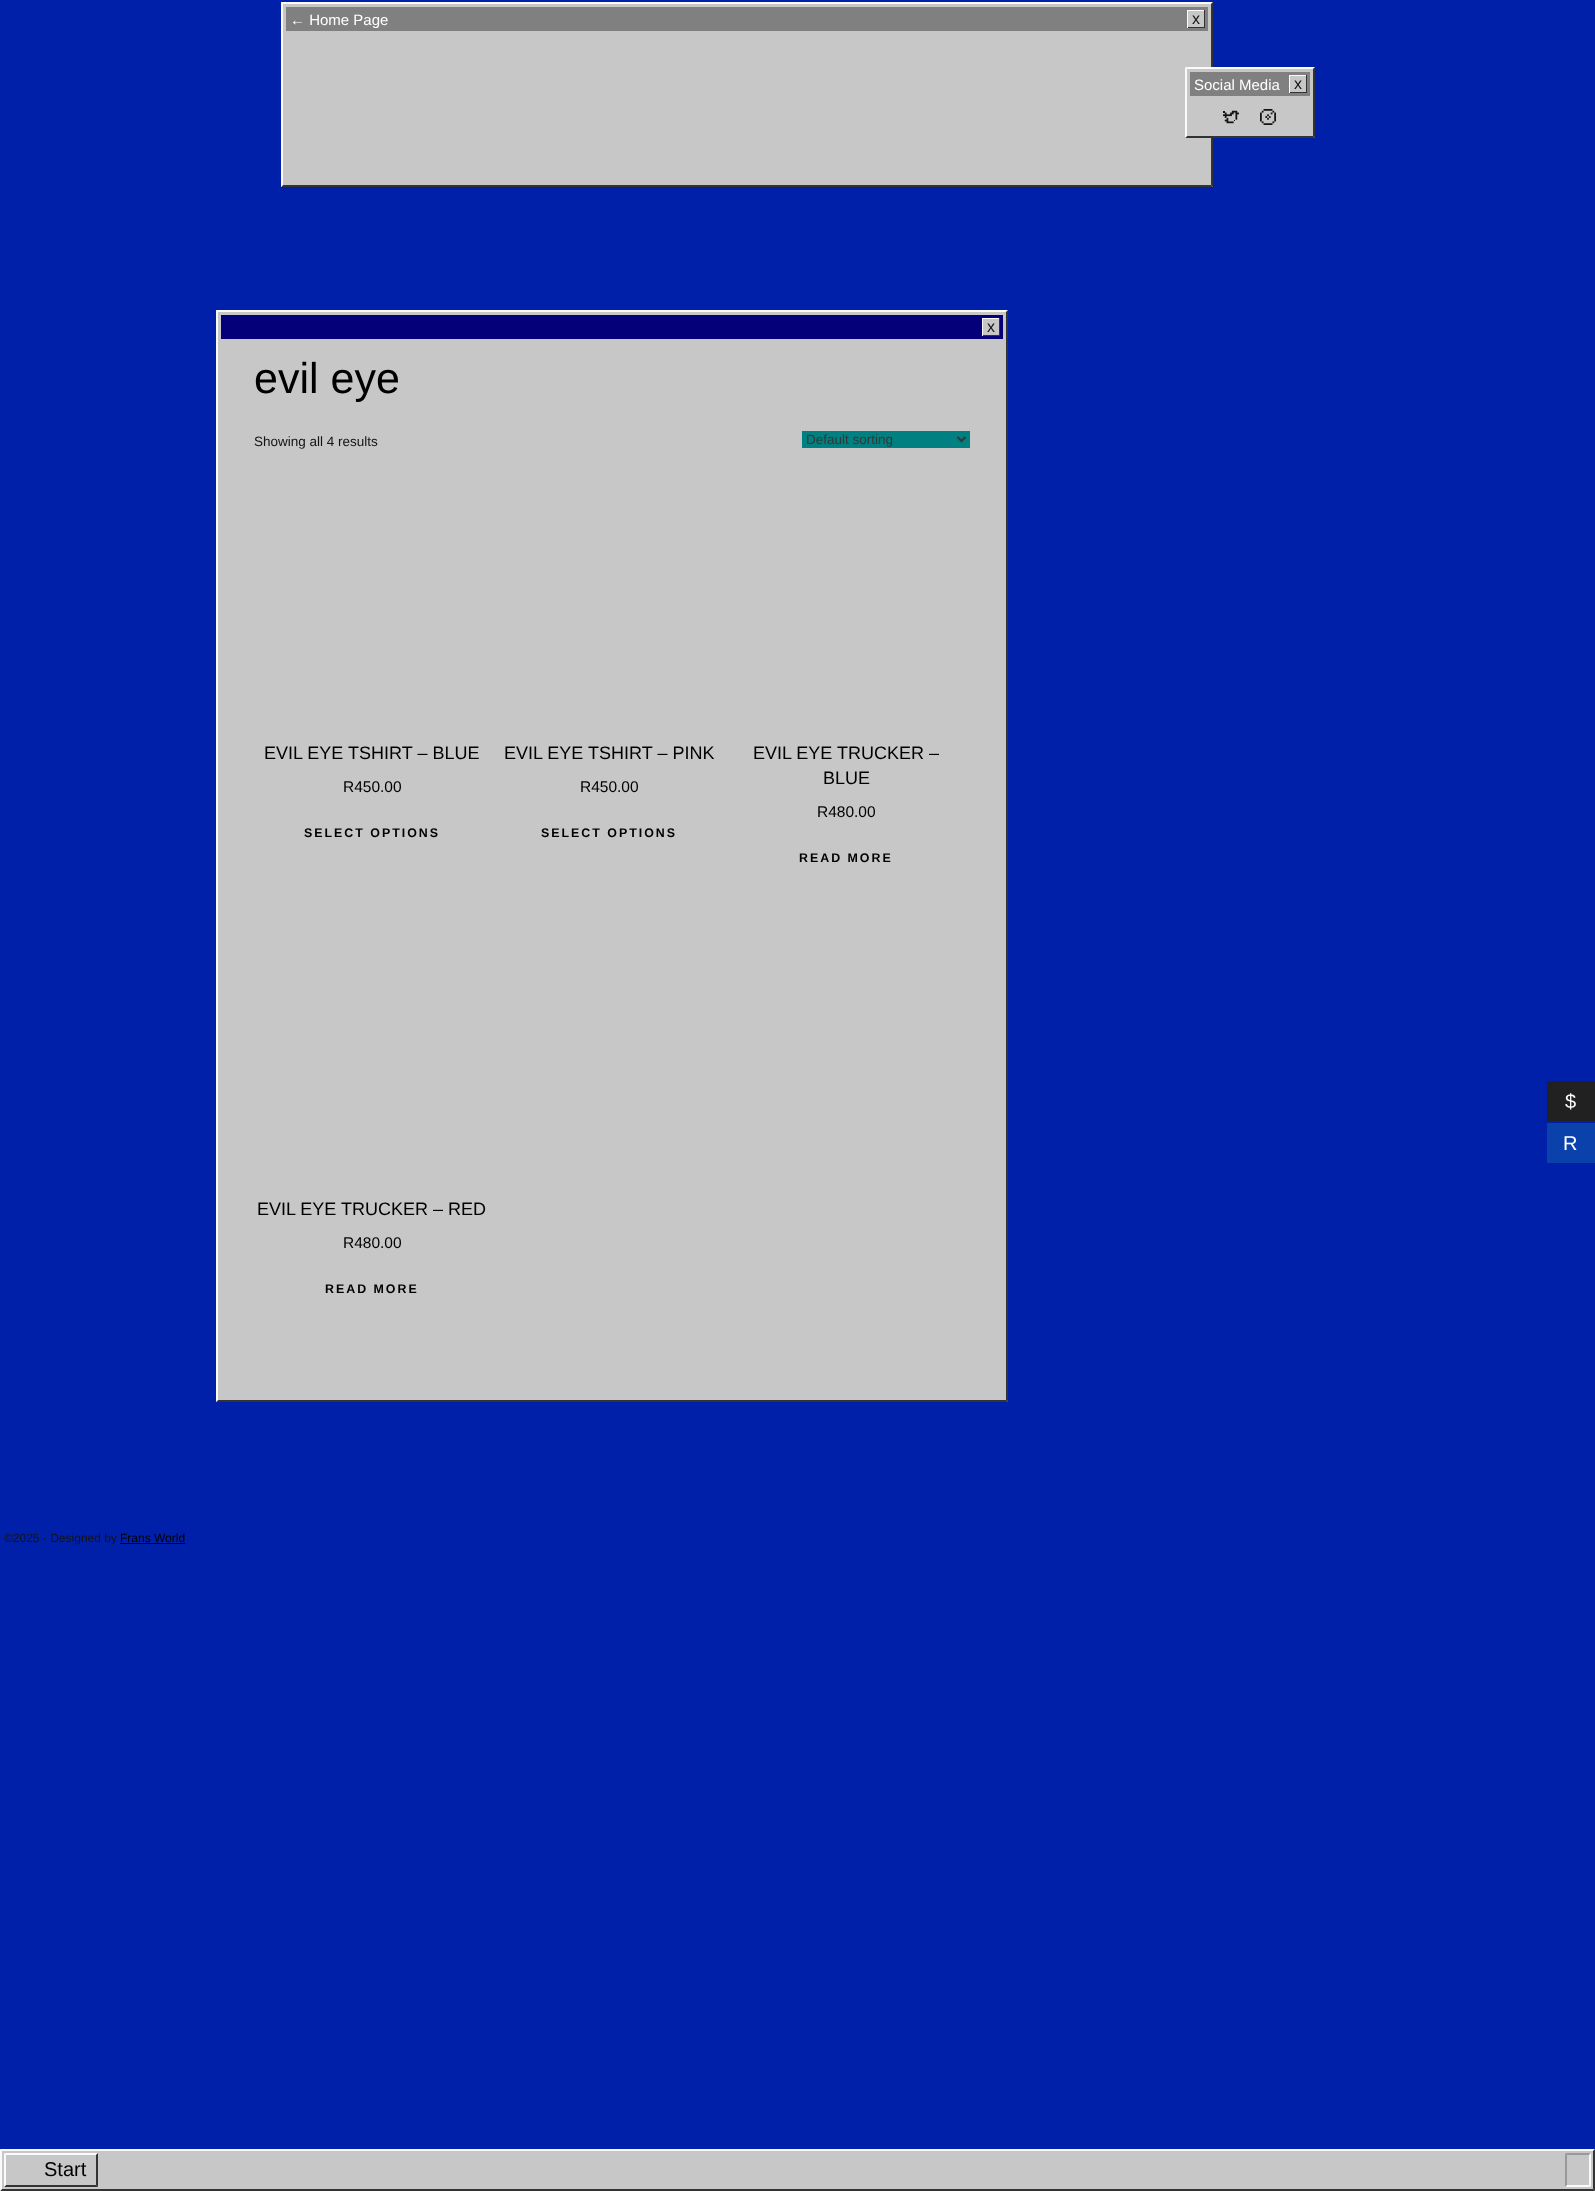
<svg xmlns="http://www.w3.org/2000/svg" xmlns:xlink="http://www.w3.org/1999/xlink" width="1595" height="2191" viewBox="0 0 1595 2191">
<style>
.cls-1{font:15px Liberation Sans;fill:#ffffff}
.cls-2{font:16px Liberation Sans;fill:#141414}
.cls-3{font:20px Liberation Sans;fill:#000000}
.cls-4{font:43px Liberation Sans;fill:#000000}
.cls-5{font:13.5px Liberation Sans;fill:#141414}
.cls-6{font:13.5px Liberation Sans;fill:#363636}
.cls-7{font:18px Liberation Sans;fill:#000000}
.cls-8{font:15.5px Liberation Sans;fill:#000000}
.cls-9{font:bold 12.4px Liberation Sans;letter-spacing:2px;fill:#000000}
.cls-10{font:20px Liberation Sans;letter-spacing:1px;fill:#ffffff}
.cls-11{font:12px Liberation Sans;fill:#141414}
.cls-12{font:12px Liberation Sans;fill:#000000}
</style>
<rect width="100%" height="100%" fill="#0120aa"/>
<rect fill="#c7c7c7" x="281" y="2" width="932" height="185"/>
<path fill="#fafafa" d="M281 2H1213L1211 4H283Z"/>
<path fill="#333333" d="M1213 2V187L1211 185V4Z"/>
<path fill="#333333" d="M1213 187H281L283 185H1211Z"/>
<path fill="#fafafa" d="M281 187V2L283 4V185Z"/>
<rect fill="#808080" x="286" y="7" width="922" height="24"/>
<rect fill="#c7c7c7" x="1188" y="11" width="16" height="16"/>
<rect fill="#fafafa" x="1187" y="10" width="18" height="1"/>
<rect fill="#333333" x="1204" y="10" width="1" height="18"/>
<rect fill="#333333" x="1187" y="27" width="18" height="1"/>
<rect fill="#fafafa" x="1187" y="10" width="1" height="18"/>
<rect fill="#c7c7c7" x="1211" y="67" width="104" height="71"/>
<path fill="#fafafa" d="M1185 67H1315L1313 69H1187Z"/>
<path fill="#333333" d="M1315 67V138L1313 136V69Z"/>
<path fill="#333333" d="M1315 138H1185L1187 136H1313Z"/>
<path fill="#fafafa" d="M1185 138V67L1187 69V136Z"/>
<rect fill="#808080" x="1190" y="72" width="120" height="24"/>
<rect fill="#c7c7c7" x="1290" y="76" width="16" height="16"/>
<rect fill="#fafafa" x="1289" y="75" width="18" height="1"/>
<rect fill="#333333" x="1306" y="75" width="1" height="18"/>
<rect fill="#333333" x="1289" y="92" width="18" height="1"/>
<rect fill="#fafafa" x="1289" y="75" width="1" height="18"/>
<image xlink:href="image0.png" x="1223" y="110" width="16" height="14"/>
<image xlink:href="image1.png" x="1260" y="109" width="16" height="16"/>
<rect fill="#c7c7c7" x="0" y="2149" width="1595" height="42"/>
<path fill="#fafafa" d="M0 2149H1595L1593 2151H2Z"/>
<path fill="#333333" d="M1595 2149V2191L1593 2189V2151Z"/>
<path fill="#333333" d="M1595 2191H0L2 2189H1593Z"/>
<path fill="#fafafa" d="M0 2191V2149L2 2151V2189Z"/>
<path fill="#fafafa" d="M4 2153H98L96 2155H6Z"/>
<path fill="#333333" d="M98 2153V2187L96 2185V2155Z"/>
<path fill="#333333" d="M98 2187H4L6 2185H96Z"/>
<path fill="#fafafa" d="M4 2187V2153L6 2155V2185Z"/>
<rect fill="#c7c7c7" x="216" y="310" width="792" height="1092"/>
<path fill="#fafafa" d="M216 310H1008L1006 312H218Z"/>
<path fill="#333333" d="M1008 310V1402L1006 1400V312Z"/>
<path fill="#333333" d="M1008 1402H216L218 1400H1006Z"/>
<path fill="#fafafa" d="M216 1402V310L218 312V1400Z"/>
<rect fill="#04007a" x="221" y="315" width="782" height="24"/>
<rect fill="#c7c7c7" x="983" y="319" width="16" height="16"/>
<rect fill="#fafafa" x="982" y="318" width="18" height="1"/>
<rect fill="#333333" x="999" y="318" width="1" height="18"/>
<rect fill="#333333" x="982" y="335" width="18" height="1"/>
<rect fill="#fafafa" x="982" y="318" width="1" height="18"/>
<rect fill="#008080" x="802" y="431" width="168" height="17"/>
<path fill="none" stroke="#363636" stroke-width="2" d="M957.5 437L961.5 441L965.5 437"/>
<rect fill="#212121" x="1547" y="1081" width="48" height="40"/>
<rect fill="#0a41aa" x="1547" y="1123" width="48" height="40"/>
<rect fill="#000000" x="120" y="1543" width="65" height="1"/>
<path fill="#999999" d="M1565 2153H1591L1589 2155H1567Z"/>
<path fill="#fafafa" d="M1591 2153V2187L1589 2185V2155Z"/>
<path fill="#fafafa" d="M1591 2187H1565L1567 2185H1589Z"/>
<path fill="#999999" d="M1565 2187V2153L1567 2155V2185Z"/>
<text class="cls-1" x="290" y="25">← Home Page</text>
<text class="cls-2" x="1192" y="24">x</text>
<text class="cls-1" x="1194" y="90">Social Media</text>
<text class="cls-2" x="1294" y="89">x</text>
<text class="cls-3" x="44" y="2176">Start</text>
<text class="cls-2" x="987" y="332">x</text>
<text class="cls-4" x="254" y="393">evil eye</text>
<text class="cls-5" x="254" y="446">Showing all 4 results</text>
<text class="cls-6" x="806" y="444">Default sorting</text>
<text class="cls-7" x="264" y="759">EVIL EYE TSHIRT – BLUE</text>
<text class="cls-8" x="343" y="792">R450.00</text>
<text class="cls-9" x="304" y="837">SELECT OPTIONS</text>
<text class="cls-7" x="504" y="759">EVIL EYE TSHIRT – PINK</text>
<text class="cls-8" x="580" y="792">R450.00</text>
<text class="cls-9" x="541" y="837">SELECT OPTIONS</text>
<text class="cls-7" x="753" y="759">EVIL EYE TRUCKER –</text>
<text class="cls-7" x="823" y="784">BLUE</text>
<text class="cls-8" x="817" y="817">R480.00</text>
<text class="cls-9" x="799" y="862">READ MORE</text>
<text class="cls-7" x="257" y="1215">EVIL EYE TRUCKER – RED</text>
<text class="cls-8" x="343" y="1248">R480.00</text>
<text class="cls-9" x="325" y="1293">READ MORE</text>
<text class="cls-10" x="1565" y="1108">$</text>
<text class="cls-10" x="1563" y="1150">R</text>
<text class="cls-11" x="4" y="1542">©2025 · Designed by</text>
<text class="cls-12" x="120" y="1542">Frans World</text>
</svg>
